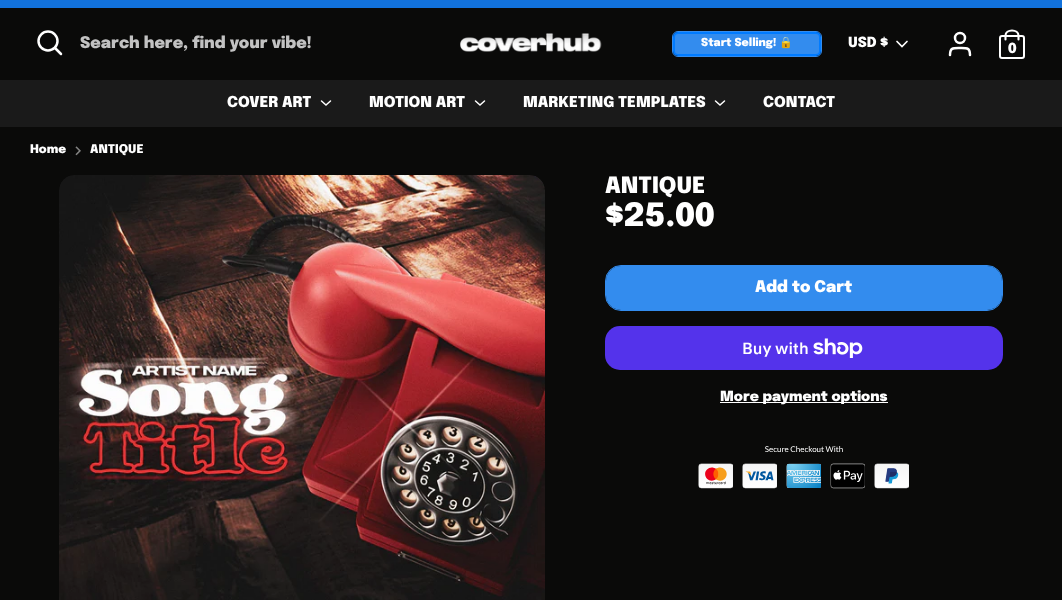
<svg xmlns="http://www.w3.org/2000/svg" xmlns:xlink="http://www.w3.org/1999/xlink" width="1062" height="600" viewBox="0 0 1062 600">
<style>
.cls-1{font:900 16px Epilogue;fill:#c2c2c2}
.cls-2{font:900 11px Epilogue;fill:#ffffff}
.cls-3{font:bold 11px Noto Color Emoji;fill:#ffffff}
.cls-4{font:900 14px Epilogue;fill:#ffffff}
.cls-5{font:900 15px Epilogue;fill:#ffffff}
.cls-6{font:900 12px Epilogue;fill:#ffffff}
.cls-7{font:900 22.5px Epilogue;fill:#ffffff}
.cls-8{font:900 32px Epilogue;fill:#ffffff}
.cls-9{font:900 16px Epilogue;fill:#ffffff}
.cls-10{font:600 16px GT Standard;fill:#ffffff}
</style>
<rect width="100%" height="100%" fill="#0a0a09"/>
<rect fill="#1272dc" x="0" y="0" width="1062" height="8"/>
<circle fill="none" stroke="#ffffff" stroke-width="2.5" cx="48" cy="41" r="9.5"/>
<path fill="none" stroke="#ffffff" stroke-width="2.5" stroke-linecap="round" d="M61 54L55 48"/>
<image xlink:href="image0.png" x="460" y="33" width="142" height="19"/>
<rect fill="none" stroke="#338cee" x="672.5" y="31.5" width="149" height="25" rx="5.5"/>
<rect fill="#338cee" stroke="#007bff" stroke-width="2" x="674" y="33" width="146" height="22" rx="4"/>
<path fill="none" stroke="#ffffff" stroke-width="1.7" stroke-linecap="round" d="M897 41.5L902 46.5L907 41.5"/>
<path fill="none" stroke="#ffffff" stroke-width="2.5" stroke-linecap="round" d="M970 55C970 47.5 967 48 960 48C953 48 950 47.5 950 55"/>
<circle fill="none" stroke="#ffffff" stroke-width="2.5" cx="960" cy="38" r="5"/>
<rect fill="none" stroke="#ffffff" stroke-width="2" x="1000" y="36" width="24" height="22" rx="2"/>
<path fill="none" stroke="#ffffff" stroke-width="2.1" stroke-linecap="round" d="M1005.5 39.5V35.5C1005.5 32.5 1008.5 30.5 1012 30.5C1015.5 30.5 1018.5 32.5 1018.5 35.5V39.5"/>
<rect fill="#1a1a1a" x="0" y="80" width="1062" height="47"/>
<path fill="none" stroke="#ffffff" stroke-width="1.5" stroke-linecap="round" d="M321.5 101L326 105L330.5 101"/>
<path fill="none" stroke="#ffffff" stroke-width="1.5" stroke-linecap="round" d="M475.5 101L480 105L484.5 101"/>
<path fill="none" stroke="#ffffff" stroke-width="1.5" stroke-linecap="round" d="M715.5 101L720 105L724.5 101"/>
<image xlink:href="image1.png" x="75" y="146" width="6" height="10"/>
<image xlink:href="image2.png" x="59" y="175" width="486" height="425"/>
<rect fill="none" stroke="#338cee" x="605.5" y="265.5" width="397" height="45" rx="15.5"/>
<rect fill="#338cee" x="606" y="266" width="396" height="44" rx="15"/>
<rect fill="#5433eb" x="605" y="326" width="398" height="44" rx="15"/>
<image xlink:href="image3.png" x="813" y="338" width="50" height="20"/>
<rect fill="#ffffff" x="720" y="402" width="168" height="1"/>
<image xlink:href="image4.png" x="698" y="446" width="211" height="43"/>
<text class="cls-1" x="80" y="48">Search here, find your vibe!</text>
<text class="cls-2" x="701" y="46">Start Selling!</text>
<text class="cls-3" x="779" y="46">🔒</text>
<text class="cls-4" x="848" y="47">USD $</text>
<text class="cls-4" x="1008" y="53">0</text>
<text class="cls-5" x="227" y="107">COVER ART</text>
<text class="cls-5" x="369" y="107">MOTION ART</text>
<text class="cls-5" x="523" y="107">MARKETING TEMPLATES</text>
<text class="cls-5" x="763" y="107">CONTACT</text>
<text class="cls-6" x="30" y="153">Home</text>
<text class="cls-6" x="90" y="153">ANTIQUE</text>
<text class="cls-7" x="605" y="193">ANTIQUE</text>
<text class="cls-8" x="605" y="226">$25.00</text>
<text class="cls-9" x="755" y="292">Add to Cart</text>
<text class="cls-10" x="742" y="354">Buy with</text>
<text class="cls-4" x="720" y="401">More payment options</text>
</svg>
